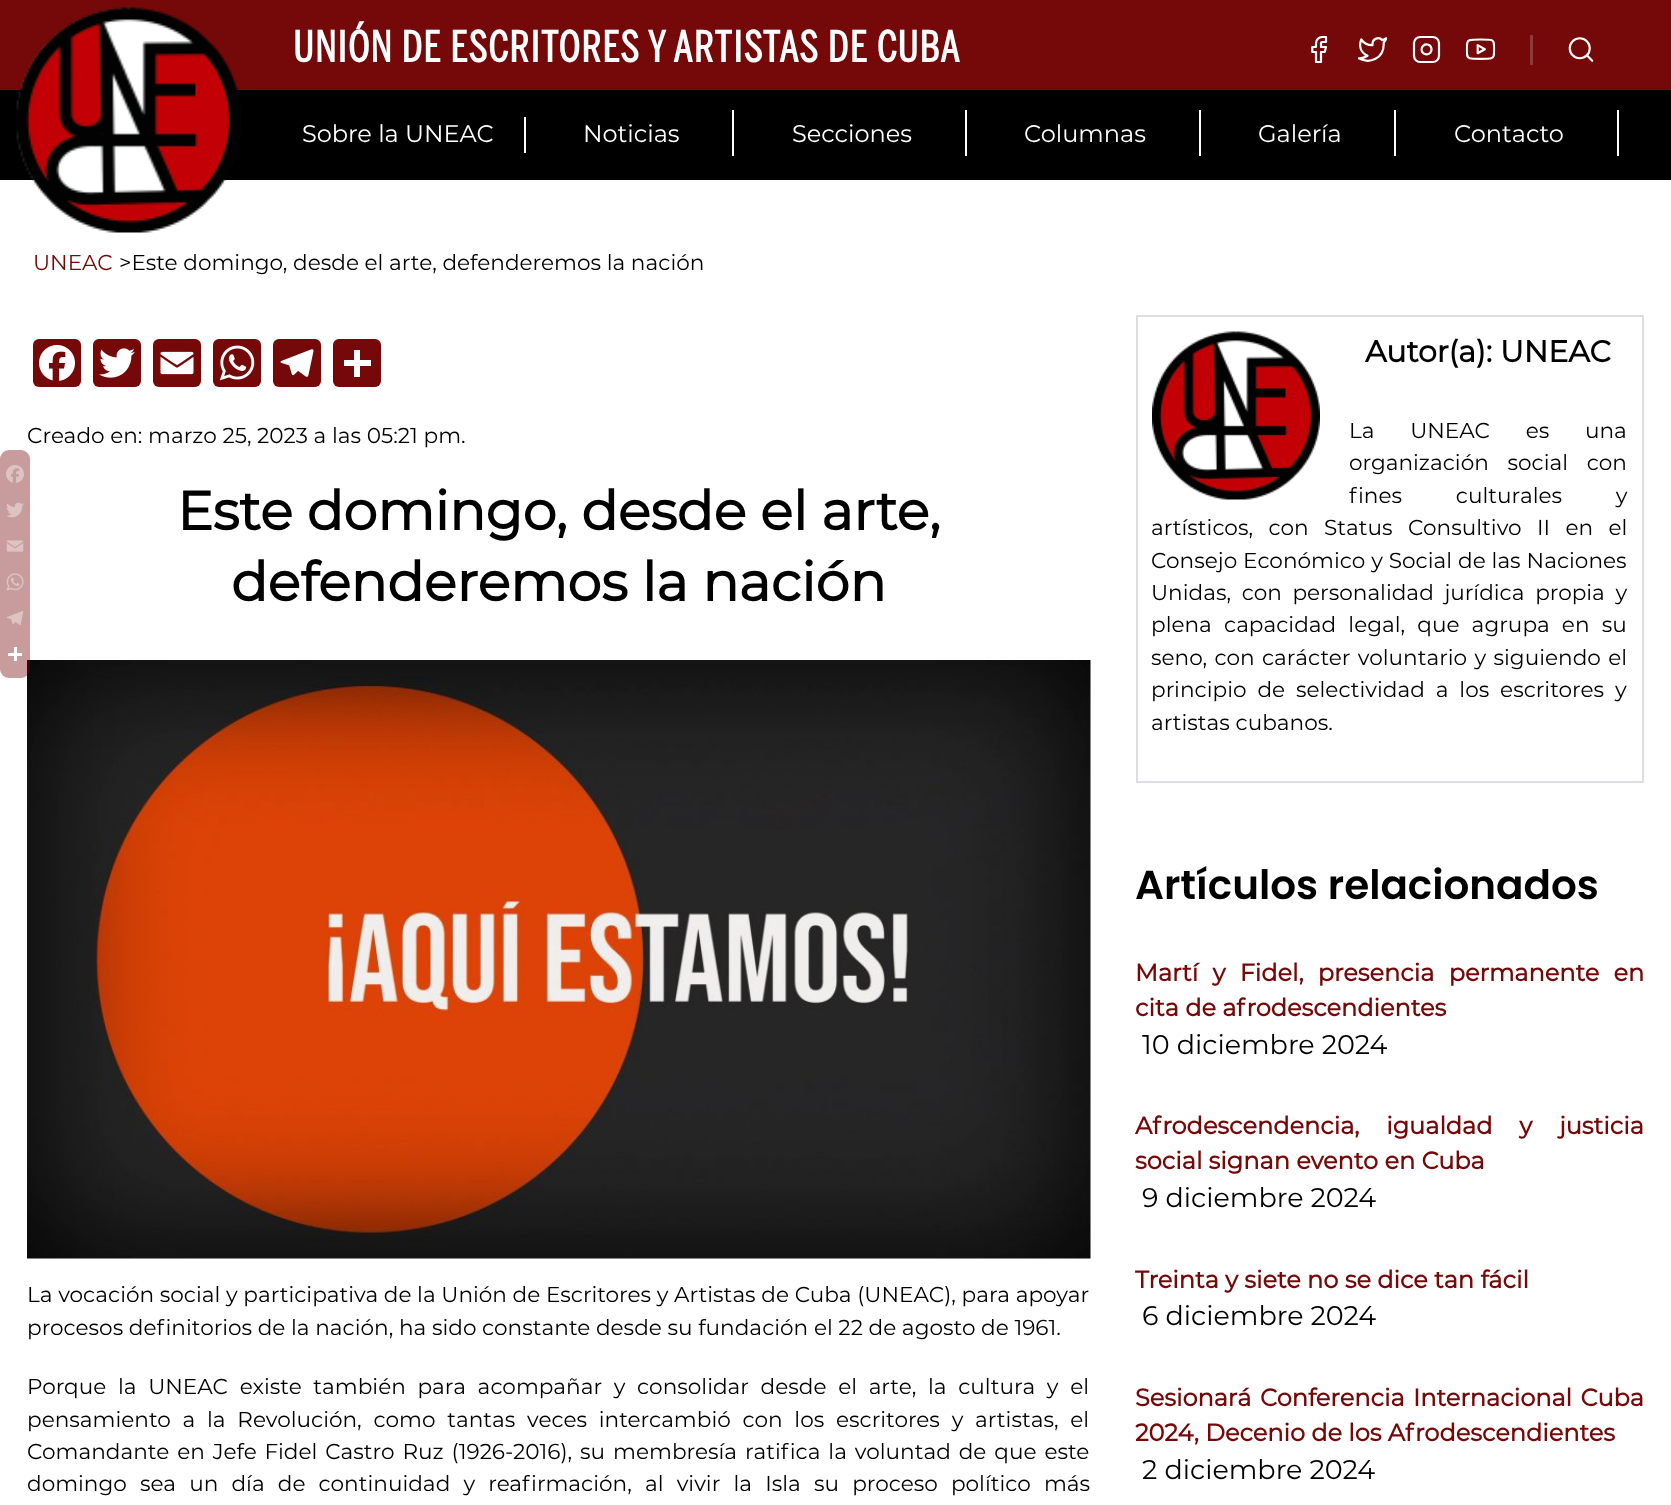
<svg xmlns="http://www.w3.org/2000/svg" xmlns:xlink="http://www.w3.org/1999/xlink" width="1671" height="1505" viewBox="0 0 1671 1505">
<style>
.cls-1{font:bold 42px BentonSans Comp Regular;letter-spacing:1.5px;fill:#ffffff}
.cls-2{font:21.6px Montserrat;fill:#750808}
.cls-3{font:21.6px Montserrat;fill:#000000}
.cls-4{font:24px Montserrat;fill:#ffffff}
.cls-5{font:bold 54px Montserrat;fill:#000000}
.cls-6{font:bold 30px Montserrat;fill:#000000}
.cls-7{font:600 40.5px Poppins;fill:#000000}
.cls-8{font:bold 24px Montserrat;fill:#750808}
.cls-9{font:27px Montserrat;fill:#000000}
</style>
<rect width="100%" height="100%" fill="#ffffff"/>
<image xlink:href="image16.png" x="27" y="660" width="1064" height="599"/>
<rect fill="#750808" fill-opacity="0.4" x="0" y="450" width="30" height="228" rx="9"/>
<image xlink:href="image0.png" x="6" y="465" width="18" height="18"/>
<image xlink:href="image1.png" x="6" y="502" width="18" height="16"/>
<image xlink:href="image2.png" x="6" y="540" width="18" height="12"/>
<image xlink:href="image3.png" x="6" y="573" width="18" height="18"/>
<image xlink:href="image4.png" x="6" y="611" width="18" height="14"/>
<rect fill="#ffffff" x="14" y="647" width="3" height="14"/>
<rect fill="#ffffff" x="8" y="653" width="14" height="3"/>
<rect fill="#750808" x="0" y="0" width="1671" height="90"/>
<rect fill="#000000" x="0" y="90" width="1671" height="90"/>
<image xlink:href="image5.png" x="16" y="7" width="225" height="226"/>
<image xlink:href="image6.png" x="1311" y="36" width="17" height="27"/>
<image xlink:href="image7.png" x="1357" y="37" width="31" height="25"/>
<image xlink:href="image8.png" x="1412" y="36" width="29" height="27"/>
<image xlink:href="image9.png" x="1465" y="38" width="31" height="22"/>
<rect fill="#913939" x="1530" y="35" width="3" height="30"/>
<image xlink:href="image10.png" x="1568" y="37" width="26" height="25"/>
<rect fill="#ffffff" x="524" y="117" width="2" height="36"/>
<rect fill="#ffffff" x="732" y="110" width="2" height="46"/>
<rect fill="#ffffff" x="965" y="110" width="2" height="46"/>
<rect fill="#ffffff" x="1199" y="110" width="2" height="46"/>
<rect fill="#ffffff" x="1394" y="110" width="2" height="46"/>
<rect fill="#ffffff" x="1617" y="110" width="2" height="46"/>
<rect fill="#750808" x="33" y="339" width="48" height="48" rx="6"/>
<image xlink:href="image11.png" x="39" y="345" width="36" height="36"/>
<rect fill="#750808" x="93" y="339" width="48" height="48" rx="6"/>
<image xlink:href="image12.png" x="99" y="348" width="36" height="30"/>
<rect fill="#750808" x="153" y="339" width="48" height="48" rx="6"/>
<image xlink:href="image13.png" x="160" y="351" width="34" height="24"/>
<rect fill="#750808" x="213" y="339" width="48" height="48" rx="6"/>
<image xlink:href="image14.png" x="219" y="345" width="36" height="36"/>
<rect fill="#750808" x="273" y="339" width="48" height="48" rx="6"/>
<image xlink:href="image15.png" x="280" y="349" width="34" height="28"/>
<rect fill="#750808" x="333" y="339" width="48" height="48" rx="6"/>
<rect fill="#ffffff" x="354" y="350" width="6" height="27"/>
<rect fill="#ffffff" x="344" y="360" width="27" height="6"/>
<rect fill="none" stroke="#dcdee2" stroke-width="2" x="1137" y="316" width="506" height="466"/>
<image xlink:href="image17.png" x="1152" y="331" width="168" height="169"/>
<text class="cls-1" x="293" y="62">UNIÓN DE ESCRITORES Y ARTISTAS DE CUBA</text>
<text class="cls-2" x="33" y="270">UNEAC</text>
<text class="cls-3" x="119" y="270">&gt;Este domingo, desde el arte, defenderemos la nación</text>
<text class="cls-4" x="302" y="142">Sobre la UNEAC</text>
<text class="cls-4" x="583" y="142">Noticias</text>
<text class="cls-4" x="792" y="142">Secciones</text>
<text class="cls-4" x="1024" y="142">Columnas</text>
<text class="cls-4" x="1258" y="142">Galería</text>
<text class="cls-4" x="1454" y="142">Contacto</text>
<text class="cls-3" x="27" y="443">Creado en: marzo 25, 2023 a las 05:21 pm.</text>
<text class="cls-5" x="177" y="530">Este domingo, desde el arte,</text>
<text class="cls-5" x="231" y="601">defenderemos la nación</text>
<text class="cls-3"><tspan x="27" y="1302">La vocación social y participativa de la Unión de Escritores y Artistas de Cuba (UNEAC), para apoyar</tspan><tspan x="27" y="1335">procesos definitorios de la nación, ha sido constante desde su fundación el 22 de agosto de 1961.</tspan></text>
<text class="cls-3"><tspan x="27" y="1394" word-spacing="6">Porque la UNEAC existe también para acompañar y consolidar desde el arte, la cultura y el</tspan><tspan x="27" y="1427" word-spacing="6.1">pensamiento a la Revolución, como tantas veces intercambió con los escritores y artistas, el</tspan><tspan x="27" y="1459" word-spacing="2.25">Comandante en Jefe Fidel Castro Ruz (1926-2016), su membresía ratifica la voluntad de que este</tspan><tspan x="27" y="1491" word-spacing="7.5">domingo sea un día de continuidad y reafirmación, al vivir la Isla su proceso político más</tspan></text>
<text class="cls-6" x="1365" y="362">Autor(a): UNEAC</text>
<text class="cls-3"><tspan x="1349" y="438" word-spacing="30">La UNEAC es una</tspan><tspan x="1349" y="470" word-spacing="13">organización social con</tspan><tspan x="1349" y="503" word-spacing="48">fines culturales y</tspan></text>
<text class="cls-3"><tspan x="1151" y="535" word-spacing="9.75">artísticos, con Status Consultivo II en el</tspan><tspan x="1151" y="568" word-spacing="0.25">Consejo Económico y Social de las Naciones</tspan><tspan x="1151" y="600" word-spacing="5">Unidas, con personalidad jurídica propia y</tspan><tspan x="1151" y="632" word-spacing="6.5">plena capacidad legal, que agrupa en su</tspan><tspan x="1151" y="665" word-spacing="1.75">seno, con carácter voluntario y siguiendo el</tspan><tspan x="1151" y="697" word-spacing="5.25">principio de selectividad a los escritores y</tspan><tspan x="1151" y="730">artistas cubanos.</tspan></text>
<text class="cls-7" x="1135" y="899">Artículos relacionados</text>
<text class="cls-8"><tspan x="1135" y="981" word-spacing="8">Martí y Fidel, presencia permanente en</tspan><tspan x="1135" y="1016">cita de afrodescendientes</tspan></text>
<text class="cls-9" x="1142" y="1054">10 diciembre 2024</text>
<text class="cls-8"><tspan x="1135" y="1134" word-spacing="20.5">Afrodescendencia, igualdad y justicia</tspan><tspan x="1135" y="1169">social signan evento en Cuba</tspan></text>
<text class="cls-9" x="1142" y="1207">9 diciembre 2024</text>
<text class="cls-8" x="1135" y="1288">Treinta y siete no se dice tan fácil</text>
<text class="cls-9" x="1142" y="1325">6 diciembre 2024</text>
<text class="cls-8"><tspan x="1135" y="1406" word-spacing="2.25">Sesionará Conferencia Internacional Cuba</tspan><tspan x="1135" y="1441">2024, Decenio de los Afrodescendientes</tspan></text>
<text class="cls-9" x="1142" y="1479">2 diciembre 2024</text>
</svg>
